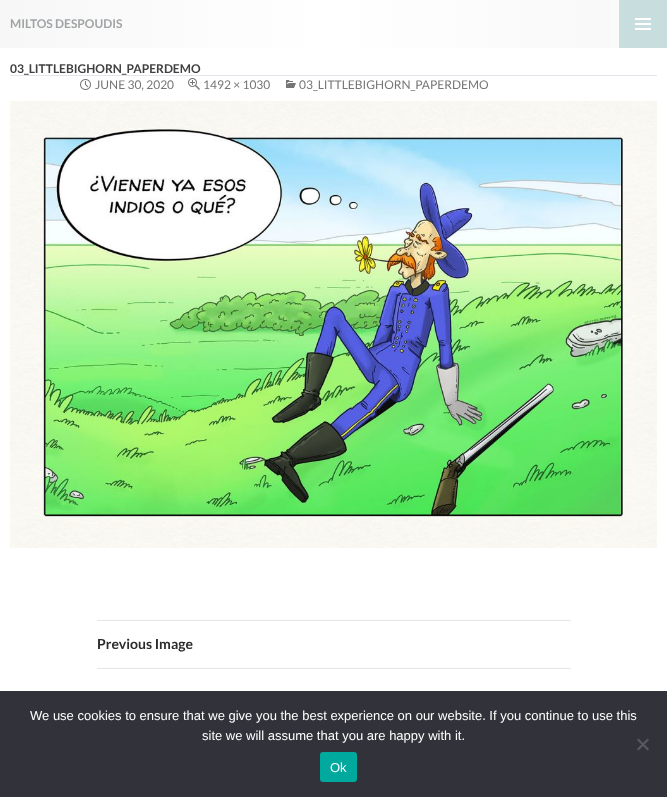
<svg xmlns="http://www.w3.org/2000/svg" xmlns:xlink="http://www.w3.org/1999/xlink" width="667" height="797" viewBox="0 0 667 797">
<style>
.cls-1{font:bold 12px Lato;fill:#a0a3a5}
.cls-2{font:bold 12px Lato;fill:#404040}
.cls-3{font:12px Lato;fill:#767676}
.cls-4{font:bold 14px Lato;fill:#2b2b2b}
.cls-5{font:13px Liberation Sans;fill:#ffffff}
</style>
<defs>
<linearGradient id="g1" gradientUnits="userSpaceOnUse" x1="0" y1="24" x2="667" y2="24"><stop offset="0" stop-color="#f7f7f7"/><stop offset="0.5" stop-color="#ffffff"/><stop offset="1" stop-color="#f7f7f7"/></linearGradient>
</defs>
<rect width="100%" height="100%" fill="#ffffff"/>
<rect fill="url(#g1)" x="0" y="0" width="609" height="48"/>
<rect fill="#fafafa" x="609" y="0" width="10" height="48"/>
<rect fill="#c7ddde" x="619" y="0" width="48" height="48"/>
<image xlink:href="image0.png" x="635" y="18" width="16" height="12"/>
<rect fill="#e2e4ea" x="10" y="75" width="647" height="1"/>
<image xlink:href="image1.png" x="80" y="79" width="11" height="11"/>
<image xlink:href="image2.png" x="188" y="78" width="12" height="12"/>
<image xlink:href="image3.png" x="286" y="80" width="10" height="8"/>
<image xlink:href="image4.png" x="10" y="101" width="647" height="447"/>
<rect fill="#e6e6e6" x="97" y="620" width="474" height="1"/>
<rect fill="#e6e6e6" x="97" y="668" width="474" height="1"/>
<rect fill="#32323a" x="0" y="691" width="667" height="106"/>
<path fill="#59595d" d="M647.5 738.5L649 740L638.5 750.5L637 749Z"/>
<path fill="#59595d" d="M637 740L638.5 738.5L649 749L647.5 750.5Z"/>
<rect fill="#00a99d" x="320" y="752" width="37" height="30" rx="3"/>
<text class="cls-1" x="10" y="28">MILTOS DESPOUDIS</text>
<text class="cls-2" x="10" y="73">03_LITTLEBIGHORN_PAPERDEMO</text>
<text class="cls-3" x="95" y="89">JUNE 30, 2020</text>
<text class="cls-3" x="203" y="89">1492 × 1030</text>
<text class="cls-3" x="299" y="89">03_LITTLEBIGHORN_PAPERDEMO</text>
<text class="cls-4" x="97" y="649">Previous Image</text>
<text class="cls-5" x="30" y="720">We use cookies to ensure that we give you the best experience on our website. If you continue to use this</text>
<text class="cls-5" x="202" y="740">site we will assume that you are happy with it.</text>
<text class="cls-5" x="330" y="772">Ok</text>
</svg>
